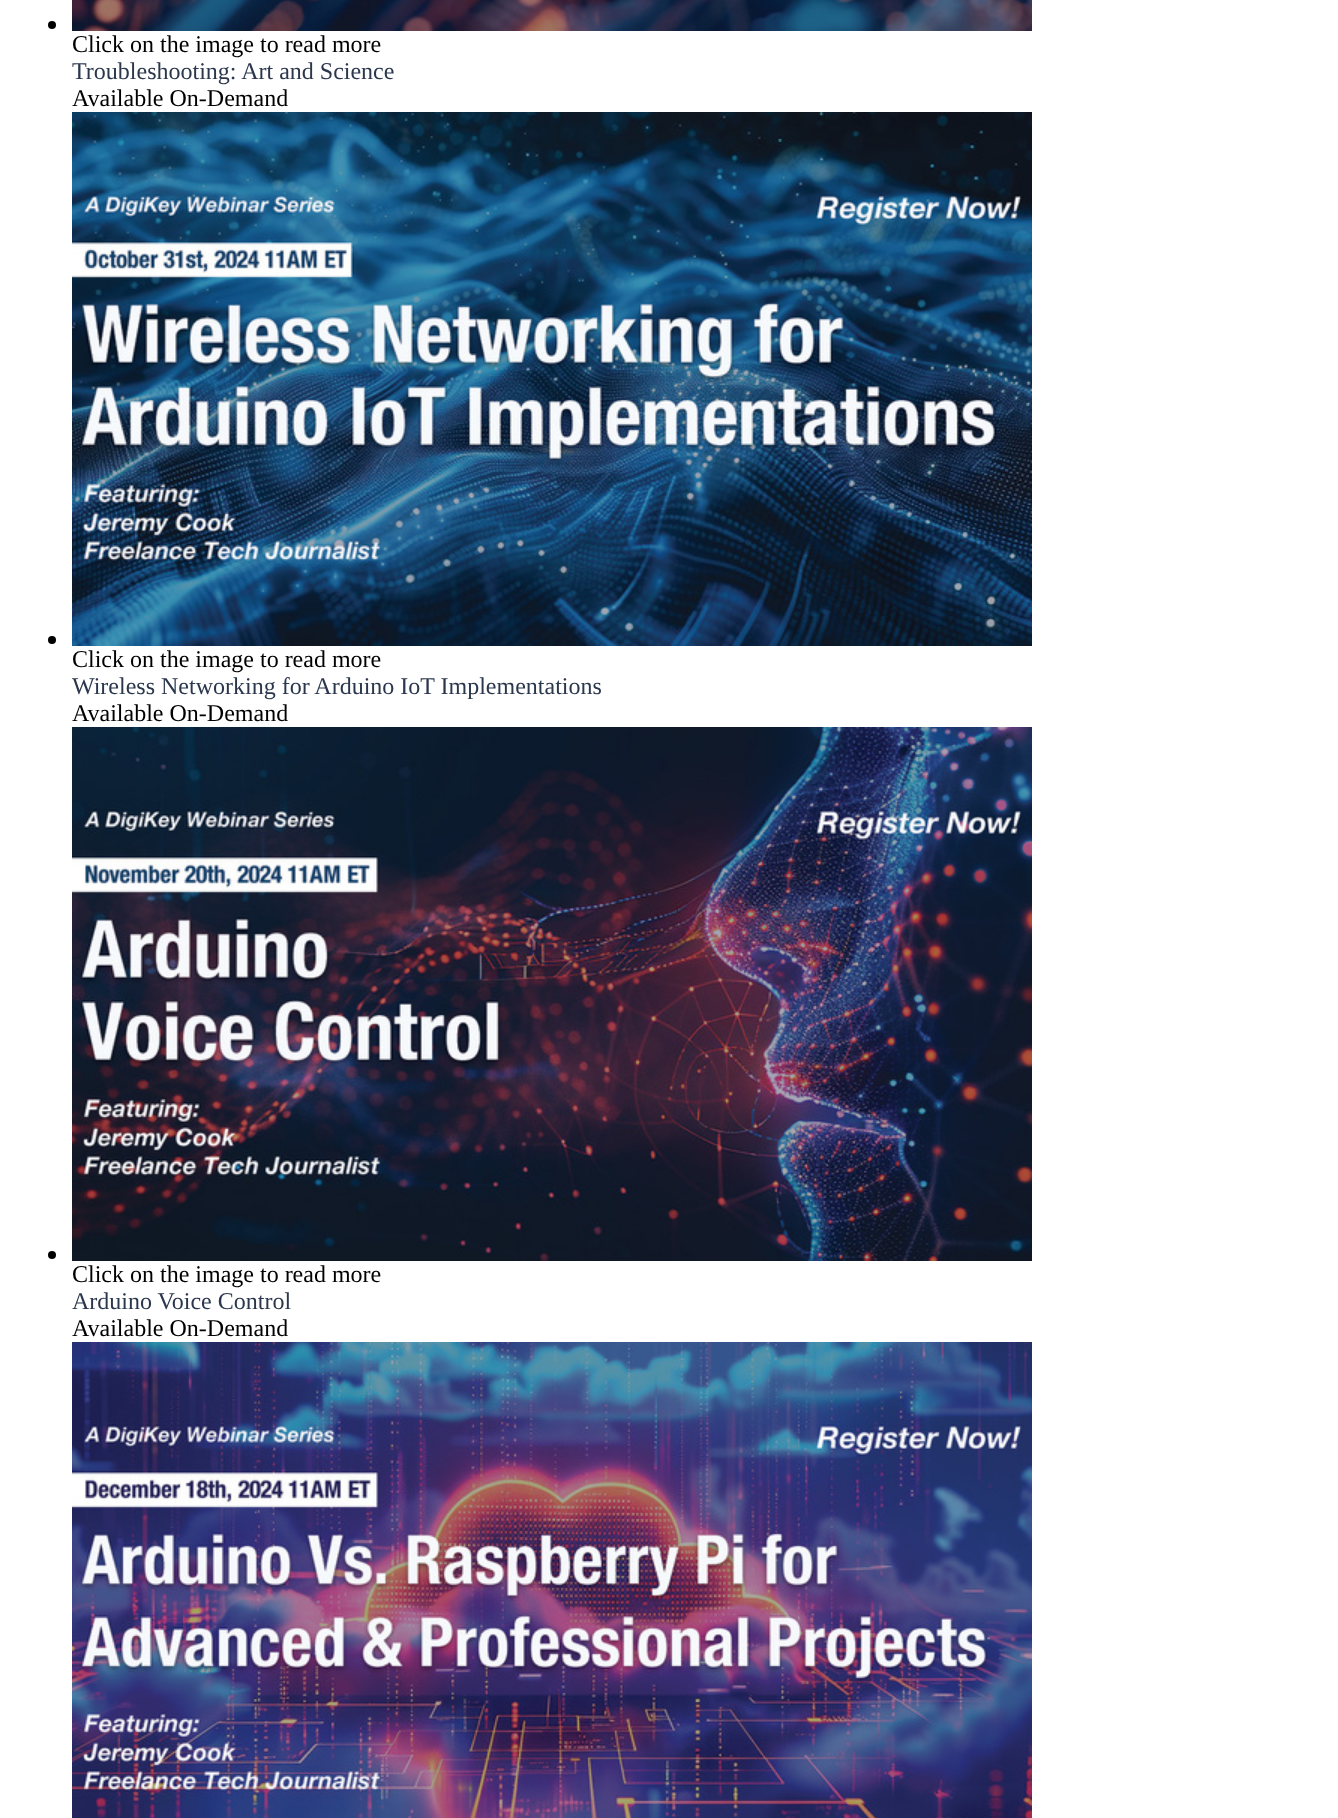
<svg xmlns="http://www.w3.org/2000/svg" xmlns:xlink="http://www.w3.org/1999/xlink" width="1338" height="1818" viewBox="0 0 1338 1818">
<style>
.cls-1{font:24px Liberation Serif;fill:#000000}
.cls-2{font:24px Liberation Serif;fill:#2b374d}
</style>
<rect width="100%" height="100%" fill="#ffffff"/>
<circle fill="#000000" cx="52" cy="25" r="4"/>
<image xlink:href="image0.png" x="72" y="0" width="960" height="31"/>
<circle fill="#000000" cx="52" cy="640" r="4"/>
<image xlink:href="image1.png" x="72" y="112" width="960" height="534"/>
<circle fill="#000000" cx="52" cy="1255" r="4"/>
<image xlink:href="image2.png" x="72" y="727" width="960" height="534"/>
<image xlink:href="image3.png" x="72" y="1342" width="960" height="476"/>
<text class="cls-1" x="72" y="52">Click on the image to read more</text>
<text class="cls-2" x="72" y="79">Troubleshooting: Art and Science</text>
<text class="cls-1" x="72" y="106">Available On-Demand</text>
<text class="cls-1" x="72" y="667">Click on the image to read more</text>
<text class="cls-2" x="72" y="694">Wireless Networking for Arduino IoT Implementations</text>
<text class="cls-1" x="72" y="721">Available On-Demand</text>
<text class="cls-1" x="72" y="1282">Click on the image to read more</text>
<text class="cls-2" x="72" y="1309">Arduino Voice Control</text>
<text class="cls-1" x="72" y="1336">Available On-Demand</text>
</svg>
